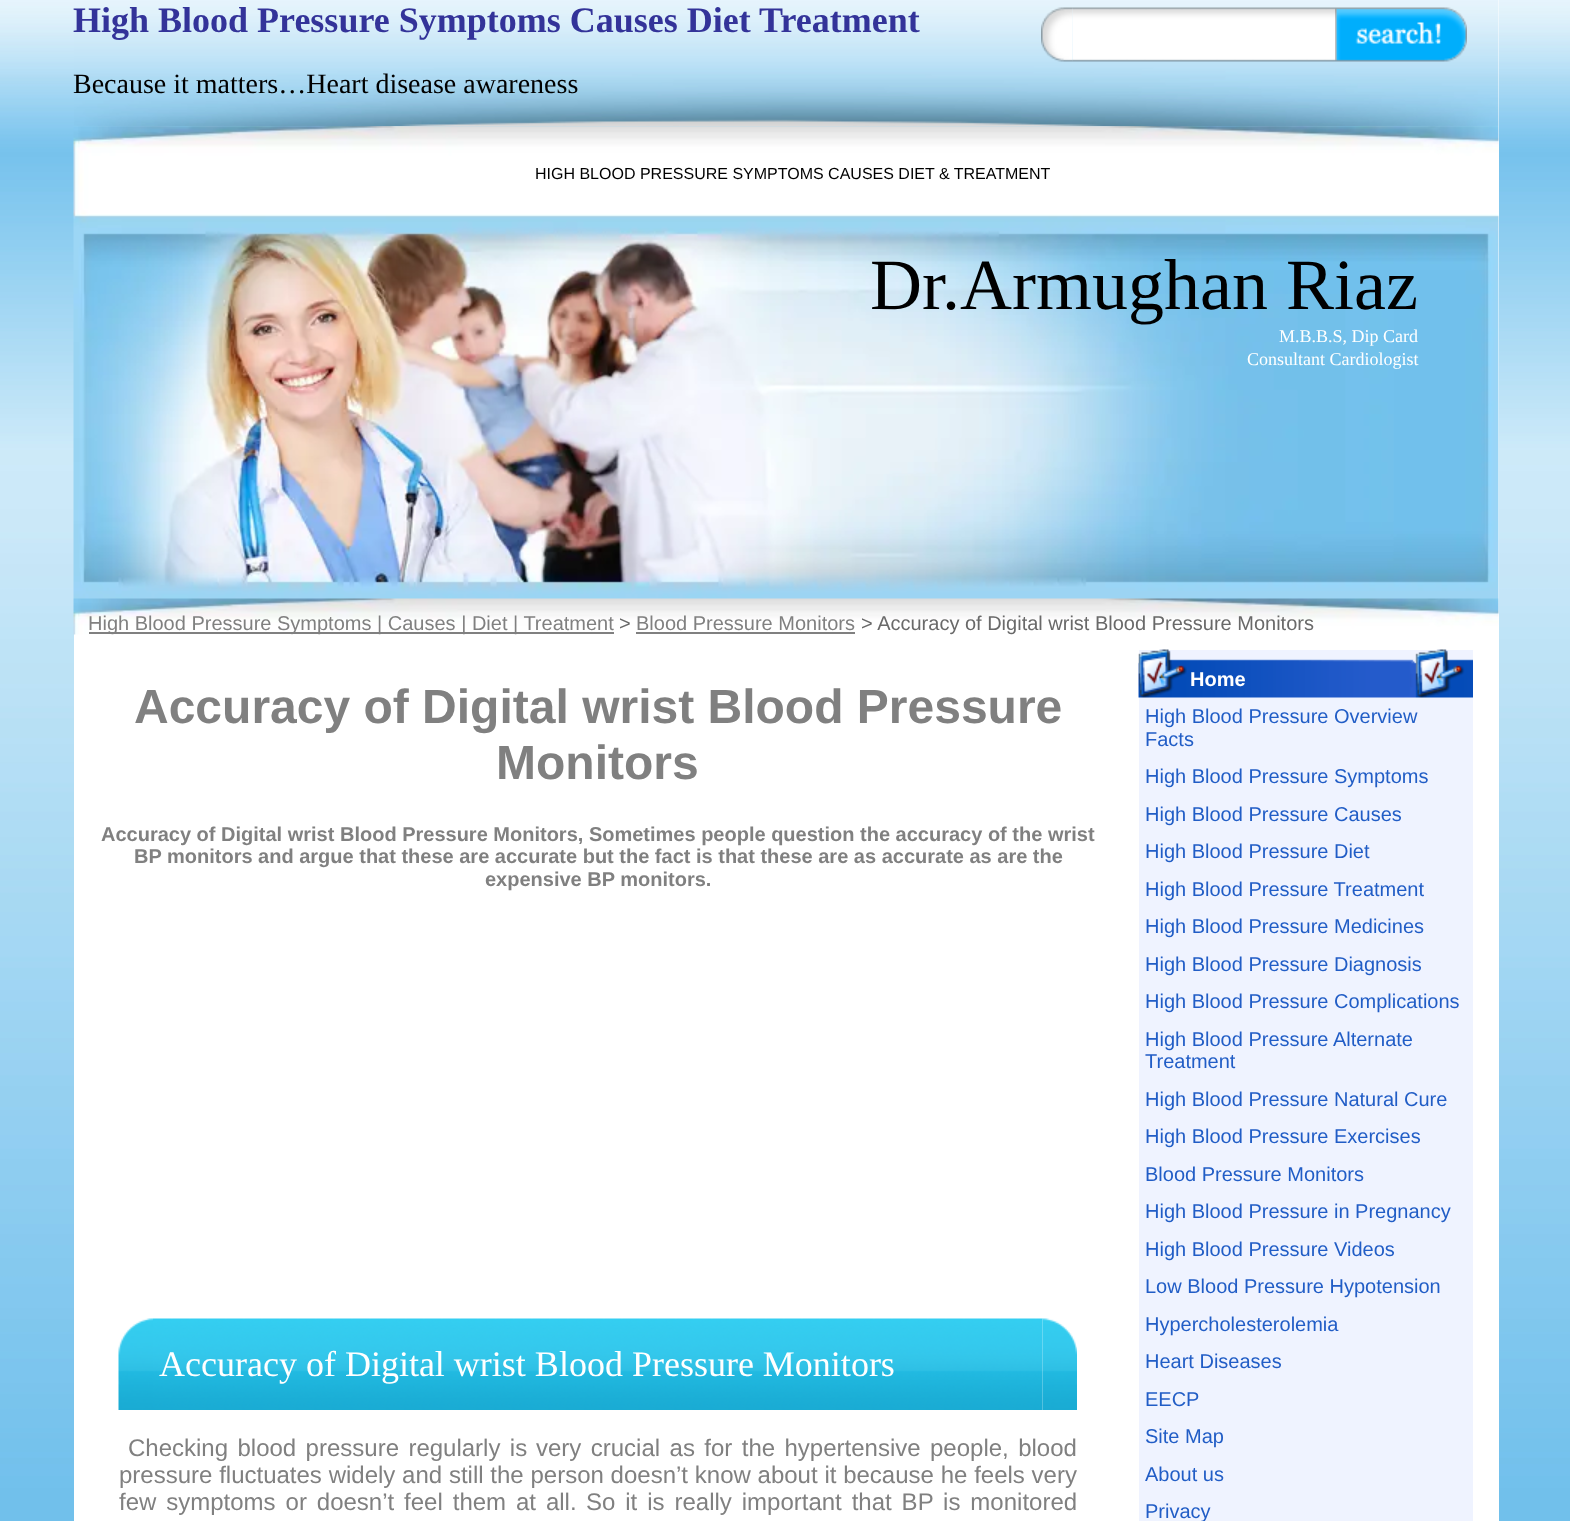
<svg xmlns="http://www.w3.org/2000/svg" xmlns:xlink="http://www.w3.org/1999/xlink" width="1570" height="1521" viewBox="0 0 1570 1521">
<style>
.cls-1{font:bold 36px Liberation Serif;fill:#333399}
.cls-2{font:28px Liberation Serif;fill:#000000}
.cls-3{font:16px Liberation Sans;fill:#000000}
.cls-4{font:72px Liberation Serif;fill:#000000}
.cls-5{font:18px Liberation Serif;fill:#ffffff}
.cls-6{font:20px Liberation Sans;fill:#808080}
.cls-7{font:20px Liberation Sans;fill:#696969}
.cls-8{font:bold 48px Liberation Sans;fill:#808080}
.cls-9{font:bold 20px Liberation Sans;fill:#808080}
.cls-10{font:36px Liberation Serif;fill:#ffffff}
.cls-11{font:24px Liberation Sans;fill:#808080}
.cls-12{font:bold 20px Liberation Sans;fill:#ffffff}
.cls-13{font:20px Liberation Sans;fill:#215dc6}
</style>
<rect width="100%" height="100%" fill="#ffffff"/>
<image xlink:href="image0.png" x="0" y="0" width="1570" height="1521"/>
<rect fill="#ffffff" x="1498" y="0" width="1" height="126"/>
<image xlink:href="image1.png" x="74" y="0" width="1425" height="126"/>
<image xlink:href="image2.png" x="1041" y="7" width="32" height="55"/>
<image xlink:href="image3.png" x="1072" y="7" width="263" height="55"/>
<image xlink:href="image4.png" x="1335" y="7" width="132" height="55"/>
<rect fill="#ffffff" x="74" y="126" width="1425" height="509"/>
<image xlink:href="image5.png" x="73" y="126" width="1426" height="509"/>
<rect fill="#808080" x="89" y="632" width="525" height="2"/>
<rect fill="#808080" x="636" y="632" width="219" height="2"/>
<rect fill="#ffffff" x="74" y="635" width="1425" height="886"/>
<image xlink:href="image6.png" x="118" y="1318" width="35" height="92"/>
<image xlink:href="image7.png" x="153" y="1318" width="890" height="92"/>
<image xlink:href="image8.png" x="1042" y="1318" width="35" height="92"/>
<rect fill="#eff3ff" x="1139" y="650" width="334" height="871"/>
<image xlink:href="image9.png" x="1138" y="649" width="335" height="49"/>
<text class="cls-1" x="73" y="32">High Blood Pressure Symptoms Causes Diet Treatment</text>
<text class="cls-2" x="73" y="93">Because it matters…Heart disease awareness</text>
<text class="cls-3" x="535" y="179">HIGH BLOOD PRESSURE SYMPTOMS CAUSES DIET &amp; TREATMENT</text>
<text class="cls-4" x="870" y="309">Dr.Armughan Riaz</text>
<text class="cls-5" x="1279" y="342">M.B.B.S, Dip Card</text>
<text class="cls-5" x="1247" y="365">Consultant Cardiologist</text>
<text class="cls-6" x="88" y="630">High Blood Pressure Symptoms | Causes | Diet | Treatment</text>
<text class="cls-7" x="619" y="630">&gt;</text>
<text class="cls-6" x="636" y="630">Blood Pressure Monitors</text>
<text class="cls-7" x="861" y="630">&gt; Accuracy of Digital wrist Blood Pressure Monitors</text>
<text class="cls-8" x="134" y="723">Accuracy of Digital wrist Blood Pressure</text>
<text class="cls-8" x="496" y="779">Monitors</text>
<text class="cls-9" x="101" y="841">Accuracy of Digital wrist Blood Pressure Monitors, Sometimes people question the accuracy of the wrist</text>
<text class="cls-9" x="134" y="863">BP monitors and argue that these are accurate but the fact is that these are as accurate as are the</text>
<text class="cls-9" x="485" y="886">expensive BP monitors.</text>
<text class="cls-10" x="159" y="1376">Accuracy of Digital wrist Blood Pressure Monitors</text>
<text class="cls-11" x="128" y="1456" word-spacing="2.75">Checking blood pressure regularly is</text>
<text class="cls-11" x="536" y="1456" word-spacing="2.75">very crucial as for the hypertensive people, blood</text>
<text class="cls-11"><tspan x="119" y="1483" word-spacing="0.1">pressure fluctuates widely and still the person doesn’t know about it because he feels very</tspan><tspan x="119" y="1510" word-spacing="3.25">few symptoms or doesn’t feel them at all.</tspan></text>
<text class="cls-11" x="586" y="1510" word-spacing="3.25">So it is really important that BP is monitored</text>
<text class="cls-12" x="1190" y="686">Home</text>
<text class="cls-13"><tspan x="1145" y="723">High Blood Pressure Overview</tspan><tspan x="1145" y="746">Facts</tspan><tspan x="1145" y="783">High Blood Pressure Symptoms</tspan><tspan x="1145" y="821">High Blood Pressure Causes</tspan><tspan x="1145" y="858">High Blood Pressure Diet</tspan><tspan x="1145" y="896">High Blood Pressure Treatment</tspan><tspan x="1145" y="933">High Blood Pressure Medicines</tspan><tspan x="1145" y="971">High Blood Pressure Diagnosis</tspan><tspan x="1145" y="1008">High Blood Pressure Complications</tspan><tspan x="1145" y="1046">High Blood Pressure Alternate</tspan><tspan x="1145" y="1068">Treatment</tspan><tspan x="1145" y="1106">High Blood Pressure Natural Cure</tspan><tspan x="1145" y="1143">High Blood Pressure Exercises</tspan><tspan x="1145" y="1181">Blood Pressure Monitors</tspan><tspan x="1145" y="1218">High Blood Pressure in Pregnancy</tspan><tspan x="1145" y="1256">High Blood Pressure Videos</tspan><tspan x="1145" y="1293">Low Blood Pressure Hypotension</tspan><tspan x="1145" y="1331">Hypercholesterolemia</tspan><tspan x="1145" y="1368">Heart Diseases</tspan><tspan x="1145" y="1406">EECP</tspan><tspan x="1145" y="1443">Site Map</tspan><tspan x="1145" y="1481">About us</tspan><tspan x="1145" y="1518">Privacy</tspan></text>
</svg>
